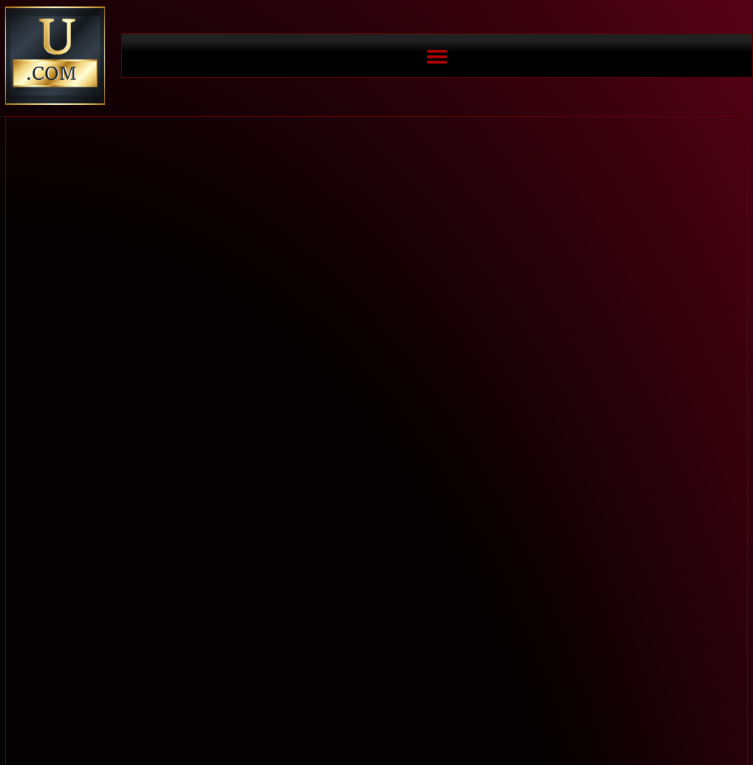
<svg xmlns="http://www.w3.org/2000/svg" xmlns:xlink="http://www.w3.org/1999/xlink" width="753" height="765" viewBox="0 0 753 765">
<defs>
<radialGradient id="g1" gradientUnits="userSpaceOnUse" cx="0" cy="0" r="1" gradientTransform="matrix(1065 0 0 1766 0 1249)"><stop offset="0.58" stop-color="#030101"/><stop offset="1" stop-color="#570116"/></radialGradient>
<linearGradient id="g2" gradientUnits="userSpaceOnUse" x1="437" y1="34" x2="437" y2="77"><stop offset="0.14" stop-color="#212121"/><stop offset="0.42" stop-color="#000000"/></linearGradient>
</defs>
<rect width="100%" height="100%" fill="#ffffff"/>
<rect fill="url(#g1)" x="0" y="0" width="753" height="765"/>
<image xlink:href="image0.png" x="4" y="6" width="102" height="100"/>
<rect fill="url(#g2)" x="122" y="34" width="630" height="43"/>
<rect fill="none" stroke="#560000" x="121.5" y="33.5" width="631" height="44"/>
<image xlink:href="image1.png" x="426" y="49" width="22" height="15"/>
<rect fill="none" stroke="#590404" x="5.5" y="116.5" width="742" height="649"/>
</svg>
